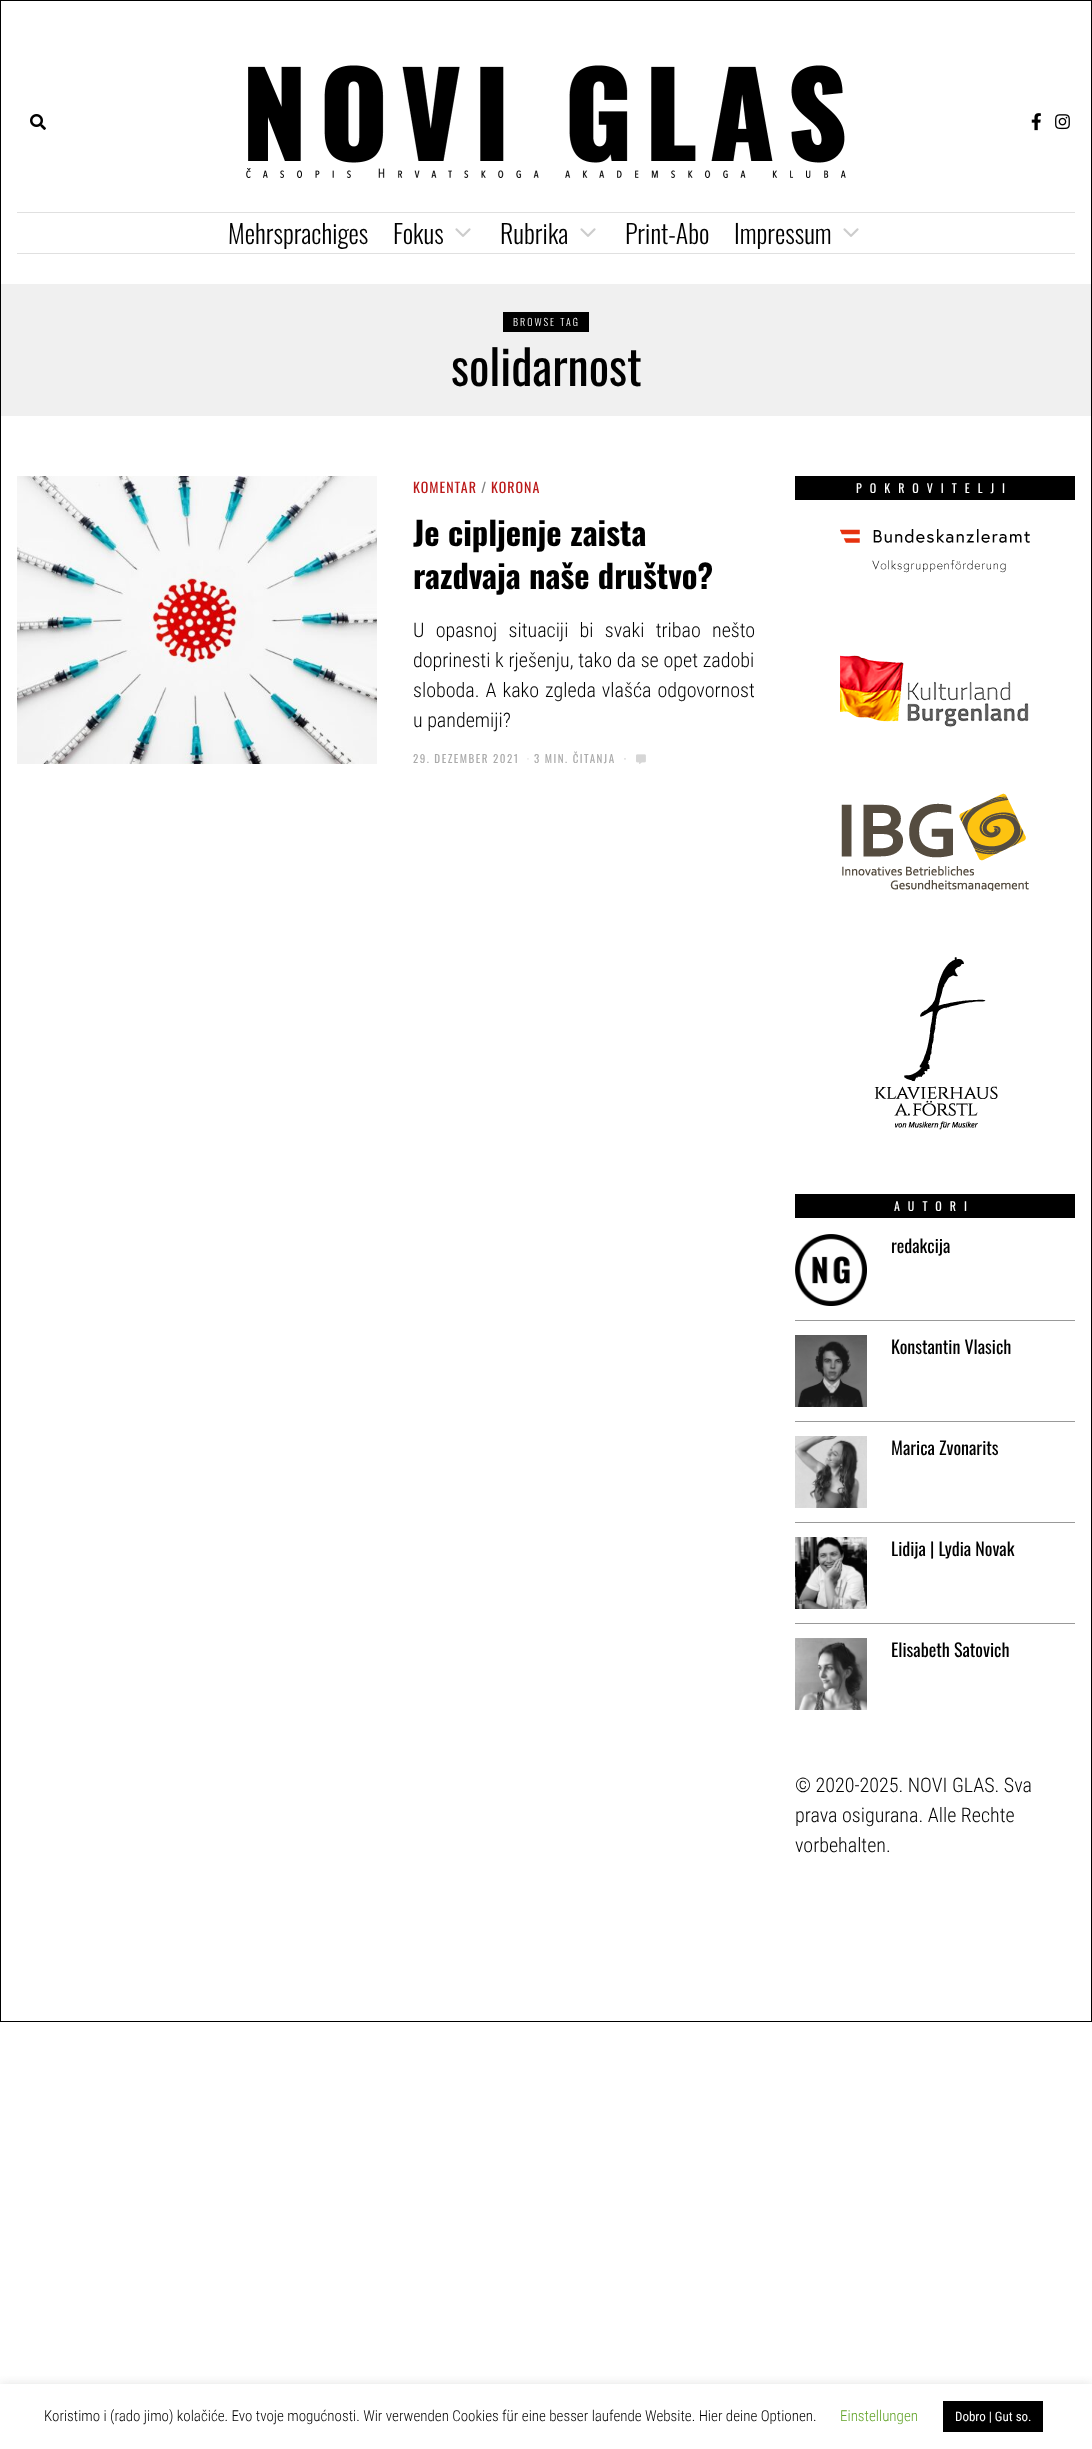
<svg xmlns="http://www.w3.org/2000/svg" xmlns:xlink="http://www.w3.org/1999/xlink" width="1092" height="2449" viewBox="0 0 1092 2449">
<style>
.cls-1{font:300 26px Oswald;fill:#000000}
.cls-2{font:300 10px Oswald;letter-spacing:2px;fill:#ffffff}
.cls-3{font:48px Oswald;fill:#000000}
.cls-4{font:14px Oswald;letter-spacing:1px;fill:#bb1919}
.cls-5{font:14px Oswald;letter-spacing:1px;fill:#808080}
.cls-6{font:bold 32.5px Oswald;fill:#000000}
.cls-7{font:300 20px Roboto Condensed;fill:#000000}
.cls-8{font:11px Oswald;letter-spacing:1.5px;fill:#aaaaaa}
.cls-9{font:11px Oswald;letter-spacing:1.5px;fill:#dddddd}
.cls-10{font:11px Oswald;letter-spacing:1.5px;fill:#c9c9c9}
.cls-11{font:12px Oswald;letter-spacing:8px;fill:#ffffff}
.cls-12{font:18px Oswald;fill:#000000}
.cls-13{font:300 15px Roboto Condensed;fill:#000000}
.cls-14{font:300 15px Roboto Condensed;fill:#62a329}
.cls-15{font:13px Roboto Condensed;fill:#ffffff}
</style>
<defs>
<clipPath id="clip1"><rect x="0" y="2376" width="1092" height="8"/></clipPath>
</defs>
<rect width="100%" height="100%" fill="#ffffff"/>
<rect fill="none" stroke="#000000" x="0.5" y="0.5" width="1091" height="2021"/>
<image xlink:href="image0.png" x="30" y="114" width="16" height="16"/>
<image xlink:href="image1.png" x="246" y="65" width="600" height="113"/>
<image xlink:href="image2.png" x="1031" y="113" width="10" height="18"/>
<image xlink:href="image3.png" x="1055" y="114" width="15" height="16"/>
<rect fill="#e0e0e0" x="17" y="212" width="1058" height="1"/>
<rect fill="#e0e0e0" x="17" y="253" width="1058" height="1"/>
<image xlink:href="image4.png" x="455" y="228" width="16" height="9"/>
<image xlink:href="image4.png" x="580" y="228" width="16" height="9"/>
<image xlink:href="image4.png" x="843" y="228" width="16" height="9"/>
<rect fill="#f0f0f0" x="1" y="284" width="1090" height="132"/>
<rect fill="#000000" x="503" y="312" width="86" height="20"/>
<image xlink:href="image5.png" x="17" y="476" width="360" height="288"/>
<image xlink:href="image6.png" x="636" y="754" width="10" height="10"/>
<rect fill="#000000" x="795" y="476" width="280" height="24"/>
<image xlink:href="image7.png" x="840" y="529" width="190" height="44"/>
<image xlink:href="image8.png" x="840" y="655" width="189" height="73"/>
<image xlink:href="image9.png" x="841" y="793" width="188" height="98"/>
<image xlink:href="image10.png" x="874" y="957" width="124" height="173"/>
<rect fill="#000000" x="795" y="1194" width="280" height="24"/>
<image xlink:href="image11.png" x="795" y="1234" width="72" height="72"/>
<rect fill="#999999" x="795" y="1320" width="280" height="1"/>
<image xlink:href="image12.png" x="795" y="1335" width="72" height="72"/>
<rect fill="#999999" x="795" y="1421" width="280" height="1"/>
<image xlink:href="image13.png" x="795" y="1436" width="72" height="72"/>
<rect fill="#999999" x="795" y="1522" width="280" height="1"/>
<image xlink:href="image14.png" x="795" y="1537" width="72" height="72"/>
<rect fill="#999999" x="795" y="1623" width="280" height="1"/>
<image xlink:href="image15.png" x="795" y="1638" width="72" height="72"/>
<g clip-path="url(#clip1)">
<rect fill="#acabab" fill-opacity="0.3" filter="blur(5px)" x="0" y="2383" width="1092" height="65"/>
</g>
<rect fill="#000000" x="943" y="2401" width="100" height="31"/>
<text class="cls-1" x="228" y="244">Mehrsprachiges</text>
<text class="cls-1" x="393" y="244">Fokus</text>
<text class="cls-1" x="500" y="244">Rubrika</text>
<text class="cls-1" x="625" y="244">Print-Abo</text>
<text class="cls-1" x="734" y="244">Impressum</text>
<text class="cls-2" x="513" y="326">BROWSE TAG</text>
<text class="cls-3" x="451" y="386">solidarnost</text>
<text class="cls-4" x="413" y="493">KOMENTAR</text>
<text class="cls-5" x="481" y="493">/</text>
<text class="cls-4" x="491" y="493">KORONA</text>
<text class="cls-6"><tspan x="413" y="546">Je cipljenje zaista</tspan><tspan x="413" y="589">razdvaja naše društvo?</tspan></text>
<text class="cls-7"><tspan x="413" y="637" word-spacing="6.75">U opasnoj situaciji bi svaki tribao nešto</tspan><tspan x="413" y="667" word-spacing="0.25">doprinesti k rješenju, tako da se opet zadobi</tspan><tspan x="413" y="697" word-spacing="1.5">sloboda. A kako zgleda vlašća odgovornost</tspan><tspan x="413" y="727">u pandemiji?</tspan></text>
<text class="cls-8" x="413" y="763">29. DEZEMBER 2021</text>
<text class="cls-9" x="527" y="763">·</text>
<text class="cls-8" x="534" y="763">3 MIN. ČITANJA</text>
<text class="cls-10" x="624" y="763">·</text>
<text class="cls-11" x="856" y="493">POKROVITELJI</text>
<text class="cls-11" x="894" y="1211">AUTORI</text>
<text class="cls-12" x="891" y="1253">redakcija</text>
<text class="cls-12" x="891" y="1354">Konstantin Vlasich</text>
<text class="cls-12" x="891" y="1455">Marica Zvonarits</text>
<text class="cls-12" x="891" y="1556">Lidija | Lydia Novak</text>
<text class="cls-12" x="891" y="1657">Elisabeth Satovich</text>
<text class="cls-7"><tspan x="795" y="1792">© 2020-2025. NOVI GLAS. Sva</tspan><tspan x="795" y="1822">prava osigurana. Alle Rechte</tspan><tspan x="795" y="1852">vorbehalten.</tspan></text>
<text class="cls-13" x="44" y="2421">Koristimo i (rado jimo) kolačiće. Evo tvoje mogućnosti. Wir verwenden Cookies für eine besser laufende Website. Hier deine Optionen.</text>
<text class="cls-14" x="840" y="2421">Einstellungen</text>
<text class="cls-15" x="955" y="2421">Dobro | Gut so.</text>
</svg>
